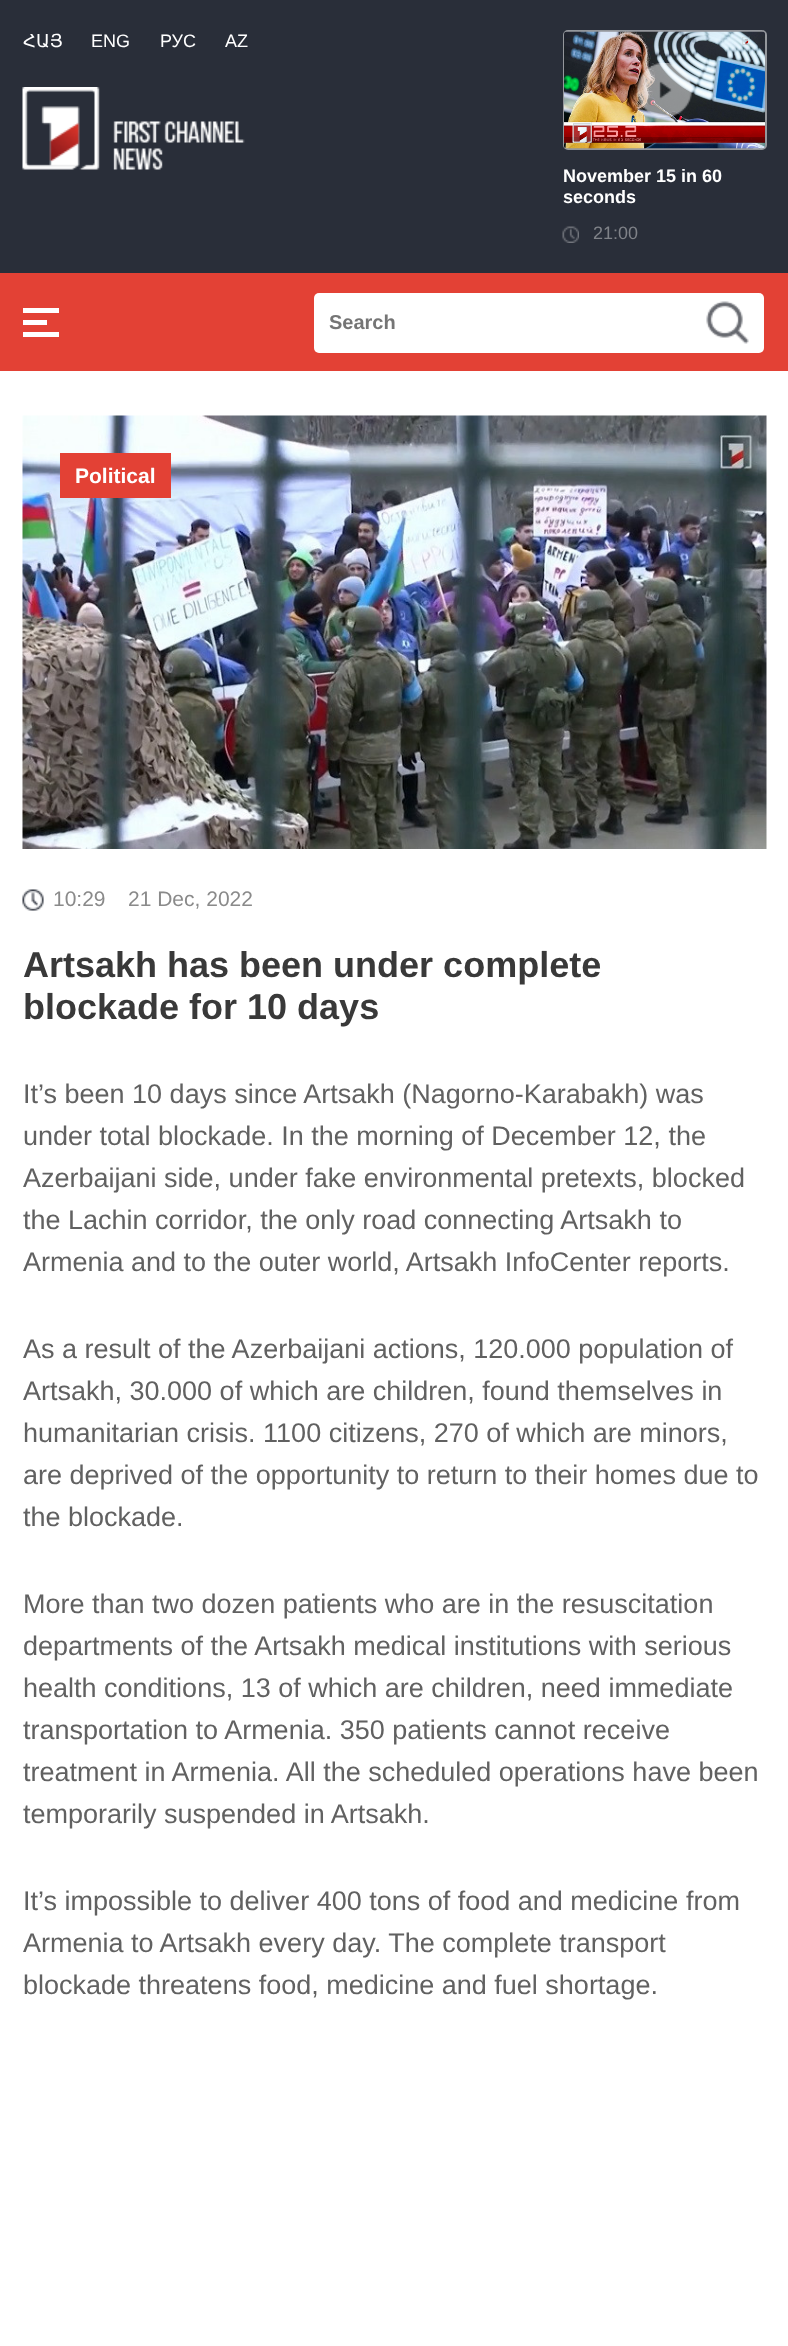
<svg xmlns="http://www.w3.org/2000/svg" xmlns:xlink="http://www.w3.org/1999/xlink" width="788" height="2346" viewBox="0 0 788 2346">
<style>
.cls-1{font:18px DejaVu Sans;fill:#ffffff}
.cls-2{font:18px Liberation Sans;fill:#ffffff}
.cls-3{font:bold 18px Liberation Sans;fill:#ffffff}
.cls-4{font:18px Liberation Sans;fill:#7f8288}
.cls-5{font:bold 20px Liberation Sans;fill:#757575}
.cls-6{font:bold 21px Liberation Sans;fill:#ffffff}
.cls-7{font:21px Liberation Sans;fill:#8a8a8a}
.cls-8{font:bold 36px Liberation Sans;fill:#393939}
.cls-9{font:27px Liberation Sans;fill:#616161}
</style>
<rect width="100%" height="100%" fill="#ffffff"/>
<rect fill="#292e39" x="0" y="0" width="788" height="273"/>
<image xlink:href="image0.png" x="22" y="87" width="223" height="83"/>
<rect fill="none" stroke="#94979c" stroke-width="2" x="564" y="31" width="202" height="118" rx="4"/>
<image xlink:href="image1.png" x="564" y="31" width="201" height="118"/>
<image xlink:href="image2.png" x="637" y="63" width="55" height="54"/>
<image xlink:href="image3.png" x="562" y="226" width="17" height="17"/>
<rect fill="#e34135" x="0" y="273" width="788" height="98"/>
<rect fill="#ffffff" x="23" y="308" width="36" height="5"/>
<rect fill="#ffffff" x="23" y="320" width="24" height="5"/>
<rect fill="#ffffff" x="23" y="332" width="36" height="5"/>
<rect fill="#ffffff" x="314" y="293" width="450" height="60" rx="5"/>
<image xlink:href="image4.png" x="706" y="301" width="43" height="43"/>
<image xlink:href="image5.png" x="22" y="415" width="745" height="434"/>
<rect fill="#e34135" x="60" y="453" width="111" height="45"/>
<image xlink:href="image6.png" x="22" y="889" width="22" height="22"/>
<text class="cls-1" x="23" y="47">ՀԱՅ</text>
<text class="cls-2" x="91" y="47">ENG</text>
<text class="cls-2" x="160" y="47">РУС</text>
<text class="cls-2" x="225" y="47">AZ</text>
<text class="cls-3"><tspan x="563" y="182">November 15 in 60</tspan><tspan x="563" y="203">seconds</tspan></text>
<text class="cls-4" x="593" y="239">21:00</text>
<text class="cls-5" x="329" y="329">Search</text>
<text class="cls-6" x="75" y="483">Political</text>
<text class="cls-7" x="53" y="906">10:29</text>
<text class="cls-7" x="128" y="906">21 Dec, 2022</text>
<text class="cls-8"><tspan x="23" y="977">Artsakh has been under complete</tspan><tspan x="23" y="1019">blockade for 10 days</tspan></text>
<text class="cls-9"><tspan x="23" y="1103">It’s been 10 days since Artsakh (Nagorno-Karabakh) was</tspan><tspan x="23" y="1145">under total blockade. In the morning of December 12, the</tspan><tspan x="23" y="1187">Azerbaijani side, under fake environmental pretexts, blocked</tspan><tspan x="23" y="1229">the Lachin corridor, the only road connecting Artsakh to</tspan><tspan x="23" y="1271">Armenia and to the outer world, Artsakh InfoCenter reports.</tspan></text>
<text class="cls-9"><tspan x="23" y="1358">As a result of the Azerbaijani actions, 120.000 population of</tspan><tspan x="23" y="1400">Artsakh, 30.000 of which are children, found themselves in</tspan><tspan x="23" y="1442">humanitarian crisis. 1100 citizens, 270 of which are minors,</tspan><tspan x="23" y="1484">are deprived of the opportunity to return to their homes due to</tspan><tspan x="23" y="1526">the blockade.</tspan></text>
<text class="cls-9"><tspan x="23" y="1613">More than two dozen patients who are in the resuscitation</tspan><tspan x="23" y="1655">departments of the Artsakh medical institutions with serious</tspan><tspan x="23" y="1697">health conditions, 13 of which are children, need immediate</tspan><tspan x="23" y="1739">transportation to Armenia. 350 patients cannot receive</tspan><tspan x="23" y="1781">treatment in Armenia. All the scheduled operations have been</tspan><tspan x="23" y="1823">temporarily suspended in Artsakh.</tspan></text>
<text class="cls-9"><tspan x="23" y="1910">It’s impossible to deliver 400 tons of food and medicine from</tspan><tspan x="23" y="1952">Armenia to Artsakh every day. The complete transport</tspan><tspan x="23" y="1994">blockade threatens food, medicine and fuel shortage.</tspan></text>
</svg>
